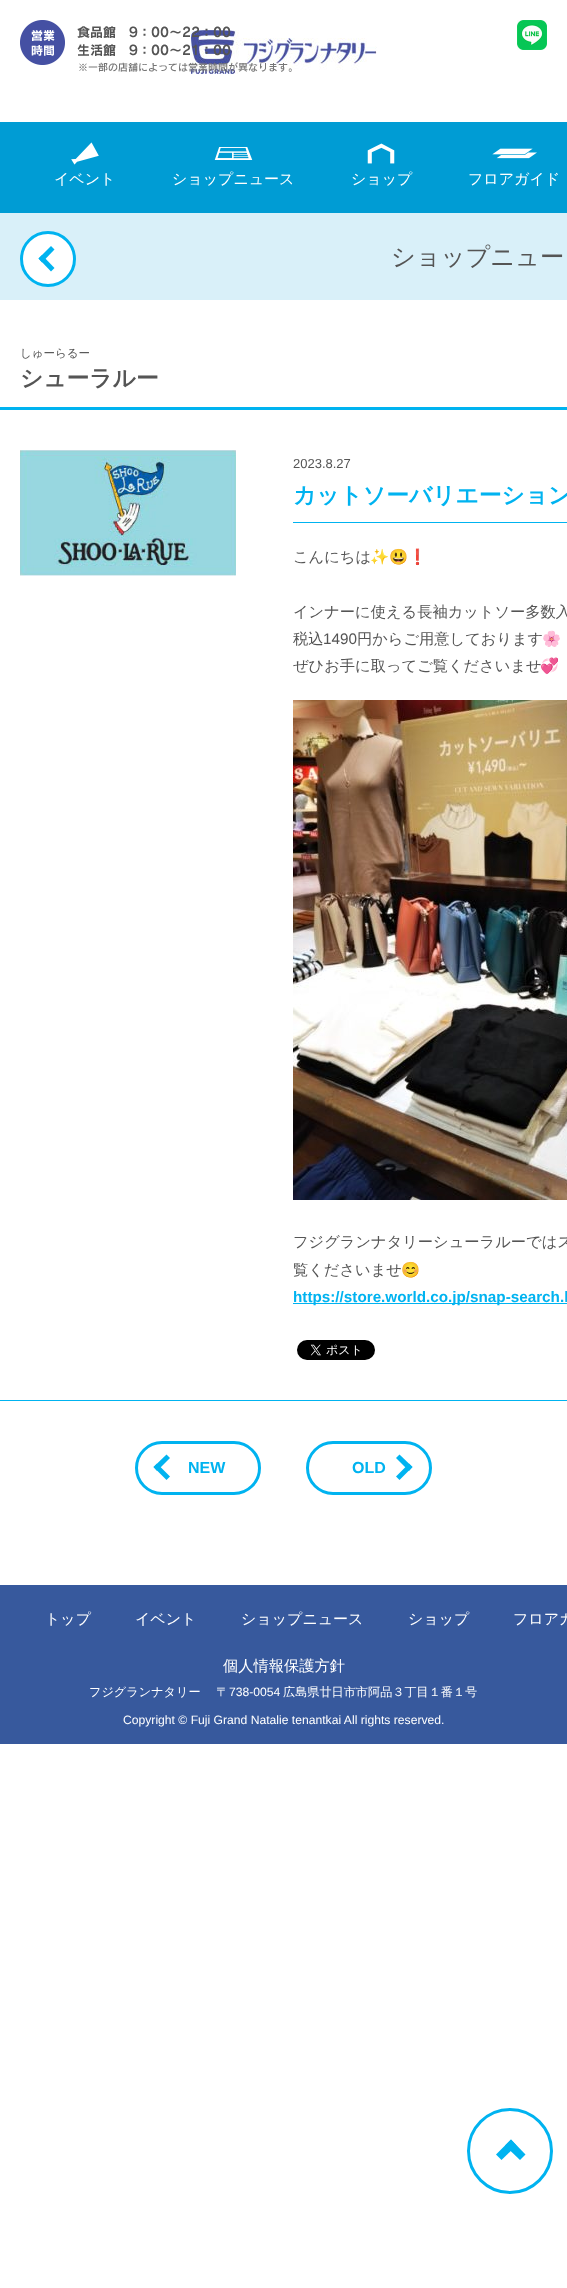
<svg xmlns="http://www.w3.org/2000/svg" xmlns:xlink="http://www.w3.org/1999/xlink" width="567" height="2288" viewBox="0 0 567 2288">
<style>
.cls-1{font:500 15px WenQuanYi Zen Hei;fill:#ffffff}
.cls-2{font:500 24.25px WenQuanYi Zen Hei;fill:#555555}
.cls-3{font:500 11.5px WenQuanYi Zen Hei;fill:#555555}
.cls-4{font:bold 22.75px WenQuanYi Zen Hei;fill:#555555}
.cls-5{font:13px Liberation Sans;fill:#555555}
.cls-6{font:bold 22.75px WenQuanYi Zen Hei;fill:#00b3f0}
.cls-7{font:500 15.25px WenQuanYi Zen Hei;fill:#555555}
.cls-8{font:15.25px Noto Color Emoji;fill:#555555}
.cls-9{font:15.25px Liberation Sans;fill:#555555}
.cls-10{font:bold 15.25px Liberation Sans;fill:#00b3f0}
.cls-11{font:bold 16px Liberation Sans;fill:#00b3f0}
.cls-12{font:500 15.25px WenQuanYi Zen Hei;fill:#ffffff}
.cls-13{font:500 12.15px WenQuanYi Zen Hei;fill:#ffffff}
.cls-14{font:12.15px Liberation Sans;fill:#ffffff}
</style>
<rect width="100%" height="100%" fill="#ffffff"/>
<image xlink:href="image2.png" x="191" y="30" width="186" height="44"/>
<image xlink:href="image0.png" x="20" y="20" width="272" height="52"/>
<image xlink:href="image1.png" x="517" y="20" width="30" height="30"/>
<rect fill="#009cd4" x="0" y="122" width="567" height="91"/>
<image xlink:href="image3.png" x="71" y="142" width="28" height="23"/>
<image xlink:href="image4.png" x="214" y="147" width="39" height="13"/>
<image xlink:href="image5.png" x="367" y="143" width="28" height="21"/>
<image xlink:href="image6.png" x="492" y="148" width="45" height="11"/>
<rect fill="#d9f0f9" x="0" y="213" width="567" height="87"/>
<circle fill="#ffffff" stroke="#00b3f0" stroke-width="3" cx="48" cy="259" r="26.5"/>
<path fill="#00b3f0" d="M51 271.5L38.5 258.5L42 255L54.5 268Z"/>
<path fill="#00b3f0" d="M42 262.5L38.5 258.5L51 246L54.5 249.5Z"/>
<rect fill="#00b3f0" x="0" y="407" width="567" height="3"/>
<rect fill="#00b3f0" x="0" y="1400" width="567" height="1"/>
<image xlink:href="image7.png" x="20" y="450" width="216" height="126"/>
<rect fill="#00b3f0" x="293" y="522" width="274" height="1"/>
<image xlink:href="image8.png" x="293" y="700" width="274" height="500"/>
<rect fill="#00b3f0" x="293" y="1303" width="274" height="1"/>
<image xlink:href="image9.png" x="297" y="1340" width="78" height="20"/>
<rect fill="none" stroke="#00b3f0" stroke-width="3" x="136.5" y="1442.5" width="123" height="51" rx="25.5"/>
<path fill="#00b3f0" d="M166.5 1480L153.5 1467L157 1463.5L170 1476.5Z"/>
<path fill="#00b3f0" d="M157 1471L153.5 1467L166.5 1454.5L170 1458Z"/>
<rect fill="none" stroke="#00b3f0" stroke-width="3" x="307.5" y="1442.5" width="123" height="51" rx="25.5"/>
<path fill="#00b3f0" d="M399.5 1454.5L412.5 1467L409 1471L396 1458Z"/>
<path fill="#00b3f0" d="M409 1463.5L412.5 1467L399.5 1480L396 1476.5Z"/>
<rect fill="#37599d" x="0" y="1585" width="567" height="159"/>
<circle fill="none" stroke="#00b3f0" stroke-width="3" cx="510" cy="2151" r="41.5"/>
<path fill="#00b3f0" d="M496 2154.5L511 2139.5L516.5 2145.5L501.5 2160Z"/>
<path fill="#00b3f0" d="M505 2145.5L511 2139.5L525.5 2154.5L520 2160Z"/>
<text class="cls-1" x="54" y="184">イベント</text>
<text class="cls-1" x="172" y="184">ショップニュース</text>
<text class="cls-1" x="351" y="184">ショップ</text>
<text class="cls-1" x="468" y="184">フロアガイド</text>
<text class="cls-2" x="391" y="265">ショップニュー</text>
<text class="cls-3" x="20" y="357">しゅーらるー</text>
<text class="cls-4" x="20" y="386">シューラルー</text>
<text class="cls-5" x="293" y="468">2023.8.27</text>
<text class="cls-6" x="293" y="503">カットソーバリエーション</text>
<text class="cls-7" x="293" y="562">こんにちは</text>
<text class="cls-8" x="370" y="562">✨😃❗️</text>
<text class="cls-7"><tspan x="293" y="617">インナーに使える長袖カットソー多数入</tspan><tspan x="293" y="644">税込</tspan></text>
<text class="cls-9" x="323" y="644">1490</text>
<text class="cls-7" x="357" y="644">円からご用意しております</text>
<text class="cls-8" x="542" y="644">🌸</text>
<text class="cls-7" x="293" y="671">ぜひお手に取ってご覧くださいませ</text>
<text class="cls-8" x="540" y="671">💞</text>
<text class="cls-7"><tspan x="293" y="1247">フジグランナタリーシューラルーではス</tspan><tspan x="293" y="1275">覧くださいませ</tspan></text>
<text class="cls-8" x="401" y="1275">😊</text>
<text class="cls-10" x="293" y="1302">https://store.world.co.jp/snap-search.h</text>
<text class="cls-11" x="188" y="1473">NEW</text>
<text class="cls-11" x="352" y="1473">OLD</text>
<text class="cls-1" x="45" y="1624">トップ</text>
<text class="cls-1" x="135" y="1624">イベント</text>
<text class="cls-1" x="241" y="1624">ショップニュース</text>
<text class="cls-1" x="408" y="1624">ショップ</text>
<text class="cls-1" x="513" y="1624">フロアガ</text>
<text class="cls-12" x="223" y="1671">個人情報保護方針</text>
<text class="cls-13" x="89" y="1696">フジグランナタリー 　〒</text>
<text class="cls-14" x="229" y="1696">738-0054</text>
<text class="cls-13" x="283" y="1696">広島県廿日市市阿品３丁目１番１号</text>
<text class="cls-14" x="123" y="1724">Copyright © Fuji Grand Natalie tenantkai All rights reserved.</text>
</svg>
